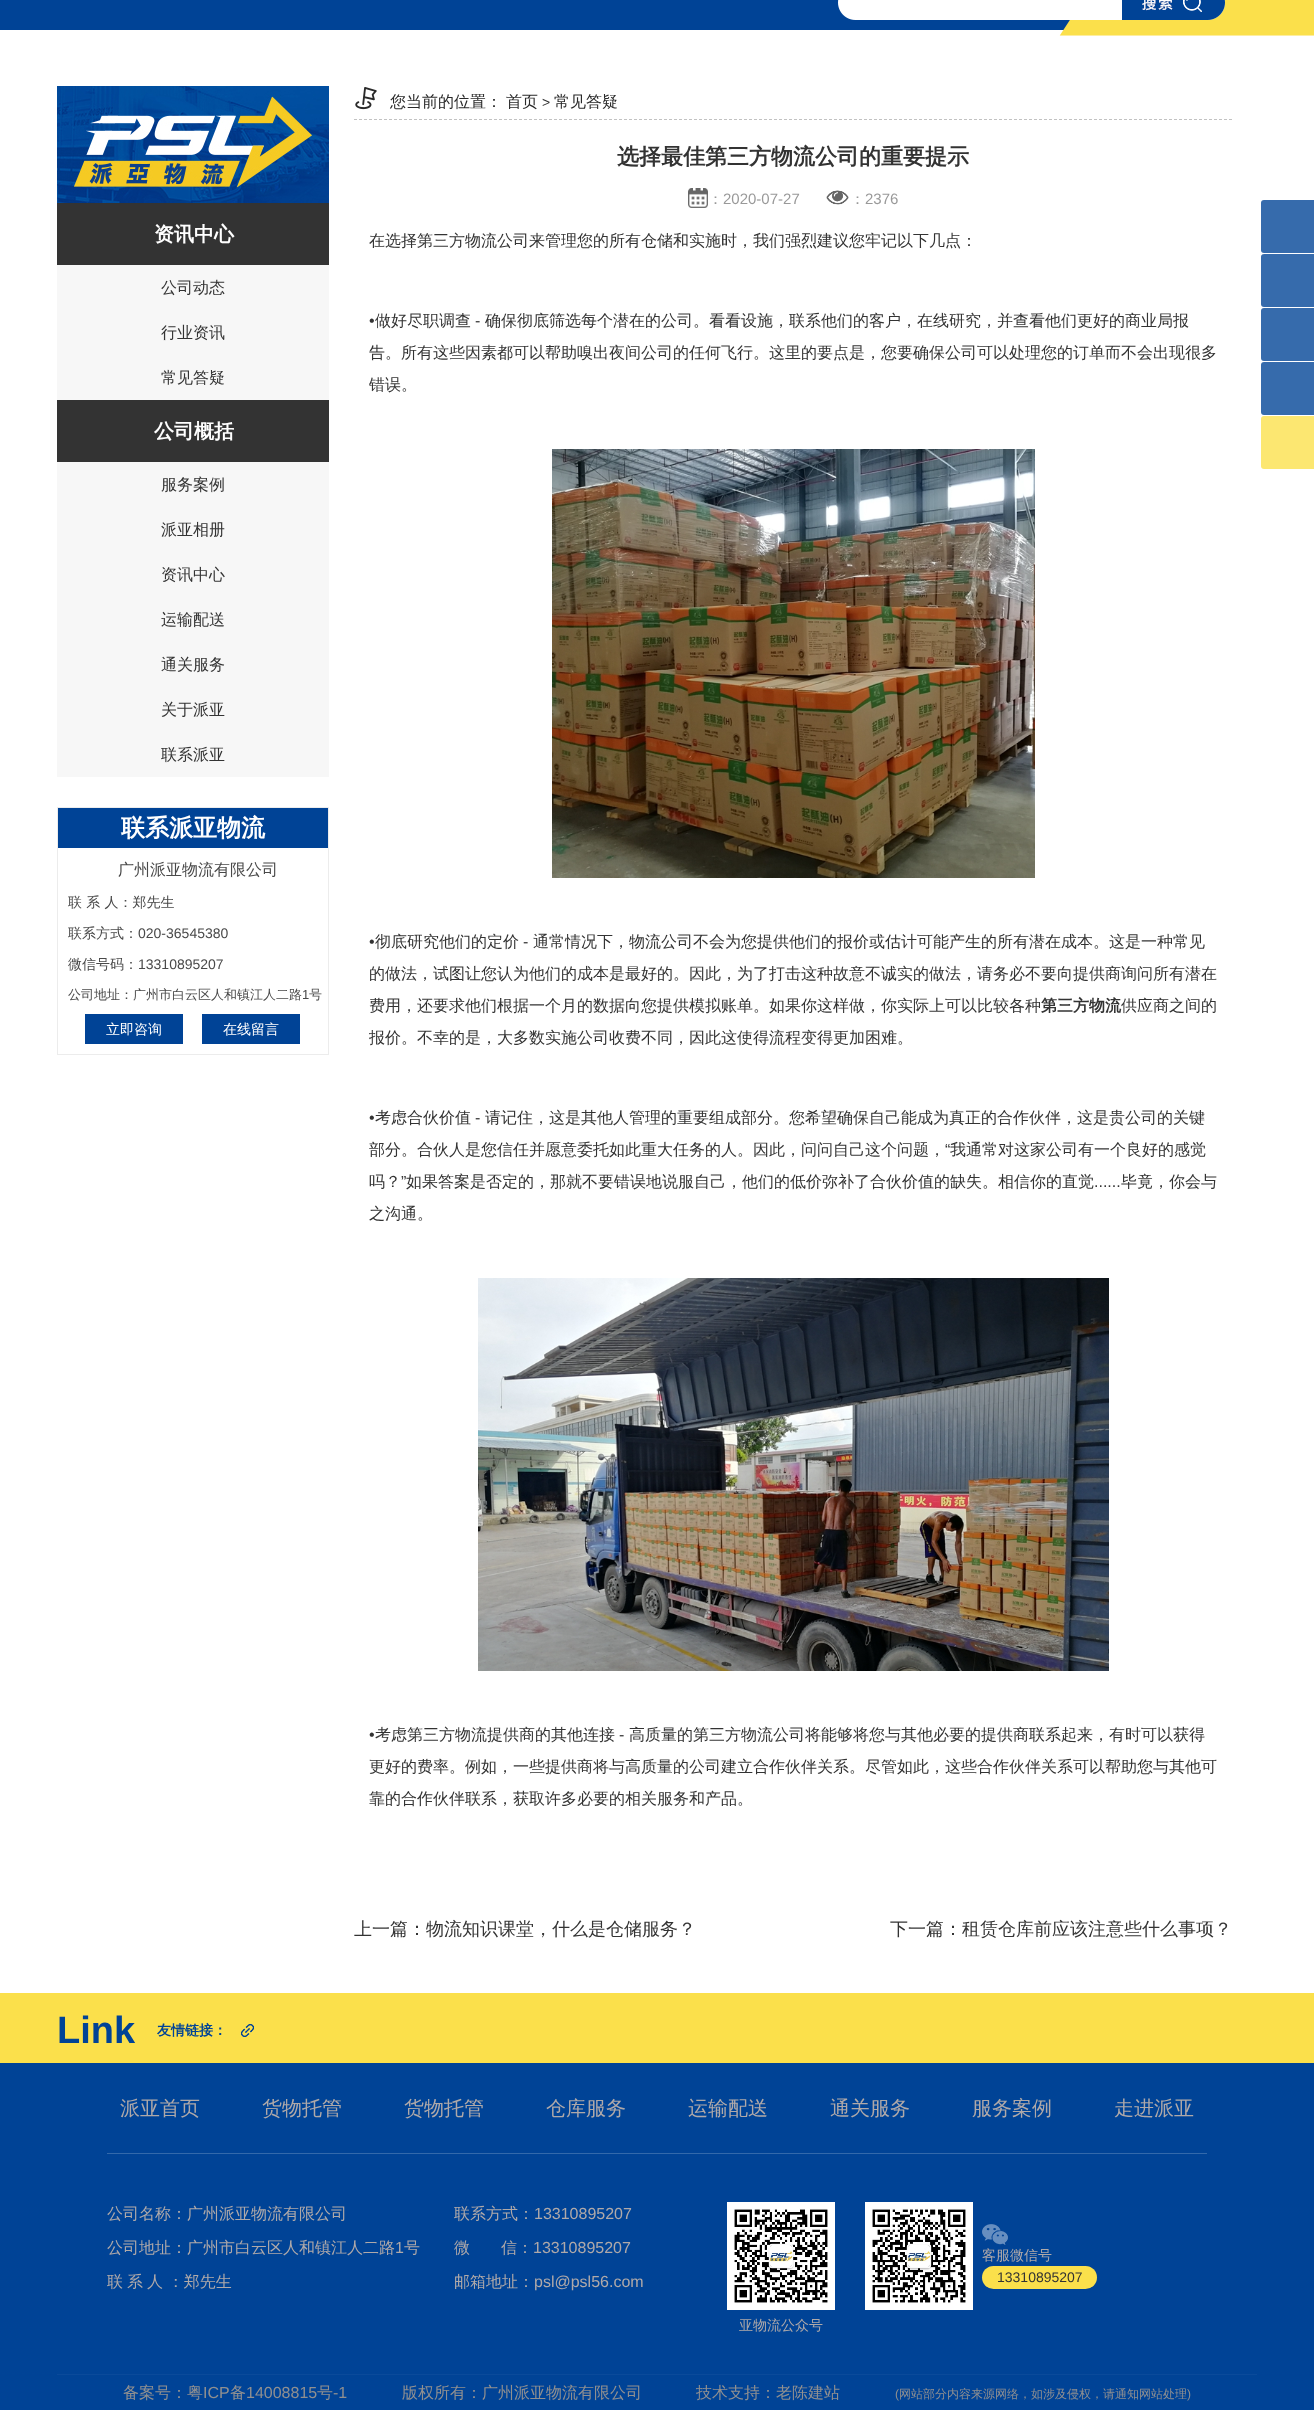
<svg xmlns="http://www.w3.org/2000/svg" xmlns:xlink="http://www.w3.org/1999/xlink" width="1314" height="2412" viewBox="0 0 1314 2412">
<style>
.cls-1{font:bold 20px WenQuanYi Zen Hei;fill:#ffffff}
.cls-2{font:500 16px WenQuanYi Zen Hei;fill:#333333}
.cls-3{font:bold 24px WenQuanYi Zen Hei;fill:#ffffff}
.cls-4{font:500 16px WenQuanYi Zen Hei;fill:#494949}
.cls-5{font:500 14px WenQuanYi Zen Hei;fill:#494949}
.cls-6{font:14px Liberation Sans;fill:#494949}
.cls-7{font:500 13px WenQuanYi Zen Hei;fill:#494949}
.cls-8{font:13px Liberation Sans;fill:#494949}
.cls-9{font:500 14px WenQuanYi Zen Hei;fill:#ffffff}
.cls-10{font:500 16px WenQuanYi Zen Hei;fill:#292929}
.cls-11{font:14px Liberation Sans;fill:#333333}
.cls-12{font:bold 22px WenQuanYi Zen Hei;fill:#333333}
.cls-13{font:500 15px WenQuanYi Zen Hei;fill:#999999}
.cls-14{font:15px Liberation Sans;fill:#999999}
.cls-15{font:16px Liberation Sans;fill:#333333}
.cls-16{font:bold 16px WenQuanYi Zen Hei;fill:#333333}
.cls-17{font:500 18px WenQuanYi Zen Hei;fill:#333333}
.cls-18{font:bold 38px Liberation Sans;fill:#004396}
.cls-19{font:bold 14px WenQuanYi Zen Hei;fill:#004396}
.cls-20{font:500 20px WenQuanYi Zen Hei;fill:#afa9a9}
.cls-21{font:500 16px WenQuanYi Zen Hei;fill:#afa9a9}
.cls-22{font:16px Liberation Sans;fill:#afa9a9}
.cls-23{font:500 14px WenQuanYi Zen Hei;fill:#afa9a9}
.cls-24{font:500 16px WenQuanYi Zen Hei;fill:#909090}
.cls-25{font:16px Liberation Sans;fill:#909090}
.cls-26{font:12px Liberation Sans;fill:#909090}
.cls-27{font:500 12px WenQuanYi Zen Hei;fill:#909090}
</style>
<rect width="100%" height="100%" fill="#ffffff"/>
<image xlink:href="image0.png" x="0" y="0" width="1314" height="36"/>
<image xlink:href="image1.png" x="838" y="0" width="387" height="20"/>
<image xlink:href="image2.png" x="57" y="86" width="272" height="117"/>
<rect fill="#333333" x="57" y="203" width="272" height="62"/>
<rect fill="#f7f7f7" x="57" y="265" width="272" height="135"/>
<rect fill="#333333" x="57" y="400" width="272" height="62"/>
<rect fill="#f7f7f7" x="57" y="462" width="272" height="315"/>
<rect fill="none" stroke="#ececec" x="57.5" y="807.5" width="271" height="247"/>
<rect fill="#004396" x="58" y="808" width="270" height="40"/>
<rect fill="#004396" x="85" y="1014" width="98" height="30"/>
<rect fill="#004396" x="202" y="1014" width="98" height="30"/>
<path fill="none" stroke="#c2c2c2" stroke-dasharray="3 2" d="M354 119.5H1232"/>
<image xlink:href="image3.png" x="355" y="87" width="22" height="23"/>
<image xlink:href="image4.png" x="688" y="188" width="20" height="20"/>
<image xlink:href="image5.png" x="826" y="190" width="23" height="15"/>
<image xlink:href="image6.png" x="552" y="449" width="483" height="429"/>
<image xlink:href="image7.png" x="478" y="1278" width="631" height="393"/>
<rect fill="#366bac" x="1261" y="200" width="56" height="53" rx="3"/>
<rect fill="#366bac" x="1261" y="254" width="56" height="53" rx="3"/>
<rect fill="#366bac" x="1261" y="308" width="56" height="53" rx="3"/>
<rect fill="#366bac" x="1261" y="362" width="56" height="53" rx="3"/>
<rect fill="#fce771" x="1261" y="416" width="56" height="53" rx="3"/>
<rect fill="#004396" x="0" y="2063" width="1314" height="347"/>
<rect fill="#fbe04b" x="0" y="1993" width="1314" height="70"/>
<image xlink:href="image8.png" x="241" y="2024" width="13" height="13"/>
<rect fill="#3369ab" x="107" y="2153" width="1100" height="1"/>
<image xlink:href="image9.png" x="865" y="2202" width="108" height="108"/>
<image xlink:href="image10.png" x="982" y="2224" width="26" height="21"/>
<rect fill="#fbe04b" x="982" y="2266" width="115" height="23" rx="11.5"/>
<image xlink:href="image11.png" x="727" y="2202" width="108" height="108"/>
<rect fill="#0a4a9a" x="57" y="2374" width="1200" height="1"/>
<text class="cls-1" x="154" y="241">资讯中心</text>
<text class="cls-2" x="161" y="293">公司动态</text>
<text class="cls-2" x="161" y="338">行业资讯</text>
<text class="cls-2" x="161" y="383">常见答疑</text>
<text class="cls-1" x="154" y="438">公司概括</text>
<text class="cls-2" x="161" y="490">服务案例</text>
<text class="cls-2" x="161" y="535">派亚相册</text>
<text class="cls-2" x="161" y="580">资讯中心</text>
<text class="cls-2" x="161" y="625">运输配送</text>
<text class="cls-2" x="161" y="670">通关服务</text>
<text class="cls-2" x="161" y="715">关于派亚</text>
<text class="cls-2" x="161" y="760">联系派亚</text>
<text class="cls-3" x="121" y="836">联系派亚物流</text>
<text class="cls-4" x="118" y="875">广州派亚物流有限公司</text>
<text class="cls-5" x="68" y="907">联 系 人：郑先生</text>
<text class="cls-5" x="68" y="938">联系方式：</text>
<text class="cls-6" x="138" y="938">020-36545380</text>
<text class="cls-5" x="68" y="969">微信号码：</text>
<text class="cls-6" x="138" y="969">13310895207</text>
<text class="cls-7" x="68" y="999">公司地址：广州市白云区人和镇江人二路</text>
<text class="cls-8" x="302" y="999">1</text>
<text class="cls-7" x="309" y="999">号</text>
<text class="cls-9" x="106" y="1034">立即咨询</text>
<text class="cls-9" x="223" y="1034">在线留言</text>
<text class="cls-10" x="390" y="107">您当前的位置：</text>
<text class="cls-10" x="506" y="107">首页</text>
<text class="cls-11" x="542" y="107">&gt;</text>
<text class="cls-10" x="554" y="107">常见答疑</text>
<text class="cls-12" x="617" y="164">选择最佳第三方物流公司的重要提示</text>
<text class="cls-13" x="708" y="204">：</text>
<text class="cls-14" x="723" y="204">2020-07-27</text>
<text class="cls-13" x="850" y="204">：</text>
<text class="cls-14" x="865" y="204">2376</text>
<text class="cls-2" x="369" y="246">在选择第三方物流公司来管理您的所有仓储和实施时，我们强烈建议您牢记以下几点：</text>
<text class="cls-15" x="369" y="326">•</text>
<text class="cls-2" x="375" y="326">做好尽职调查</text>
<text class="cls-15" x="475" y="326">-</text>
<text class="cls-2" x="485" y="326">确保彻底筛选每个潜在的公司。看看设施，联系他们的客户，在线研究，并查看他们更好的商业局报</text>
<text class="cls-2" x="369" y="358">告。所有这些因素都可以帮助嗅出夜间公司的任何飞行。这里的要点是，您要确保公司可以处理您的订单而不会出现很多</text>
<text class="cls-2" x="369" y="390">错误。</text>
<text class="cls-15" x="369" y="947">•</text>
<text class="cls-2" x="375" y="947">彻底研究他们的定价</text>
<text class="cls-15" x="523" y="947">-</text>
<text class="cls-2" x="533" y="947">通常情况下，物流公司不会为您提供他们的报价或估计可能产生的所有潜在成本。这是一种常见</text>
<text class="cls-2" x="369" y="979">的做法，试图让您认为他们的成本是最好的。因此，为了打击这种故意不诚实的做法，请务必不要向提供商询问所有潜在</text>
<text class="cls-2" x="369" y="1011">费用，还要求他们根据一个月的数据向您提供模拟账单。如果你这样做，你实际上可以比较各种</text>
<text class="cls-16" x="1041" y="1011">第三方物流</text>
<text class="cls-2" x="1121" y="1011">供应商之间的</text>
<text class="cls-2" x="369" y="1043">报价。不幸的是，大多数实施公司收费不同，因此这使得流程变得更加困难。</text>
<text class="cls-15" x="369" y="1123">•</text>
<text class="cls-2" x="375" y="1123">考虑合伙价值</text>
<text class="cls-15" x="475" y="1123">-</text>
<text class="cls-2" x="485" y="1123">请记住，这是其他人管理的重要组成部分。您希望确保自己能成为真正的合作伙伴，这是贵公司的关键</text>
<text class="cls-2" x="369" y="1155">部分。合伙人是您信任并愿意委托如此重大任务的人。因此，问问自己这个问题，</text>
<text class="cls-15" x="945" y="1155">“</text>
<text class="cls-2" x="950" y="1155">我通常对这家公司有一个良好的感觉</text>
<text class="cls-2" x="369" y="1187">吗？</text>
<text class="cls-15" x="401" y="1187">”</text>
<text class="cls-2" x="406" y="1187">如果答案是否定的，那就不要错误地说服自己，他们的低价弥补了合伙价值的缺失。相信你的直觉</text>
<text class="cls-2" x="1121" y="1187">毕竟，你会与</text>
<text class="cls-15" x="1094" y="1187">......</text>
<text class="cls-2" x="369" y="1219">之沟通。</text>
<text class="cls-15" x="369" y="1740">•</text>
<text class="cls-2" x="375" y="1740">考虑第三方物流提供商的其他连接</text>
<text class="cls-15" x="619" y="1740">-</text>
<text class="cls-2" x="629" y="1740">高质量的第三方物流公司将能够将您与其他必要的提供商联系起来，有时可以获得</text>
<text class="cls-2" x="369" y="1772">更好的费率。例如，一些提供商将与高质量的公司建立合作伙伴关系。尽管如此，这些合作伙伴关系可以帮助您与其他可</text>
<text class="cls-2" x="369" y="1804">靠的合作伙伴联系，获取许多必要的相关服务和产品。</text>
<text class="cls-17" x="354" y="1935">上一篇：物流知识课堂，什么是仓储服务？</text>
<text class="cls-17" x="890" y="1935">下一篇：租赁仓库前应该注意些什么事项？</text>
<text class="cls-18" x="57" y="2043">Link</text>
<text class="cls-19" x="157" y="2035">友情链接：</text>
<text class="cls-20" x="120" y="2115">派亚首页</text>
<text class="cls-20" x="262" y="2115">货物托管</text>
<text class="cls-20" x="404" y="2115">货物托管</text>
<text class="cls-20" x="546" y="2115">仓库服务</text>
<text class="cls-20" x="688" y="2115">运输配送</text>
<text class="cls-20" x="830" y="2115">通关服务</text>
<text class="cls-20" x="972" y="2115">服务案例</text>
<text class="cls-20" x="1114" y="2115">走进派亚</text>
<text class="cls-21" x="107" y="2219">公司名称：广州派亚物流有限公司</text>
<text class="cls-21" x="107" y="2253">公司地址：广州市白云区人和镇江人二路</text>
<text class="cls-22" x="395" y="2253">1</text>
<text class="cls-21" x="404" y="2253">号</text>
<text class="cls-21" x="107" y="2287">联</text>
<text class="cls-21" x="127" y="2287">系</text>
<text class="cls-21" x="147" y="2287">人 ：郑先生</text>
<text class="cls-21" x="454" y="2219">联系方式：</text>
<text class="cls-22" x="534" y="2219">13310895207</text>
<text class="cls-21" x="454" y="2253">微</text>
<text class="cls-21" x="501" y="2253">信：</text>
<text class="cls-22" x="533" y="2253">13310895207</text>
<text class="cls-21" x="454" y="2287">邮箱地址：</text>
<text class="cls-22" x="534" y="2287">psl@psl56.com</text>
<text class="cls-23" x="982" y="2260">客服微信号</text>
<text class="cls-11" x="997" y="2282">13310895207</text>
<text class="cls-23" x="739" y="2330">亚物流公众号</text>
<text class="cls-24" x="123" y="2398">备案号：粤</text>
<text class="cls-25" x="203" y="2398">ICP</text>
<text class="cls-24" x="230" y="2398">备</text>
<text class="cls-25" x="246" y="2398">14008815</text>
<text class="cls-24" x="317" y="2398">号</text>
<text class="cls-25" x="333" y="2398">-1</text>
<text class="cls-24" x="402" y="2398">版权所有：广州派亚物流有限公司</text>
<text class="cls-24" x="696" y="2398">技术支持：老陈建站</text>
<text class="cls-26" x="895" y="2398">(</text>
<text class="cls-27" x="899" y="2398">网站部分内容来源网络，如涉及侵权，请通知网站处理</text>
<text class="cls-26" x="1187" y="2398">)</text>
</svg>
